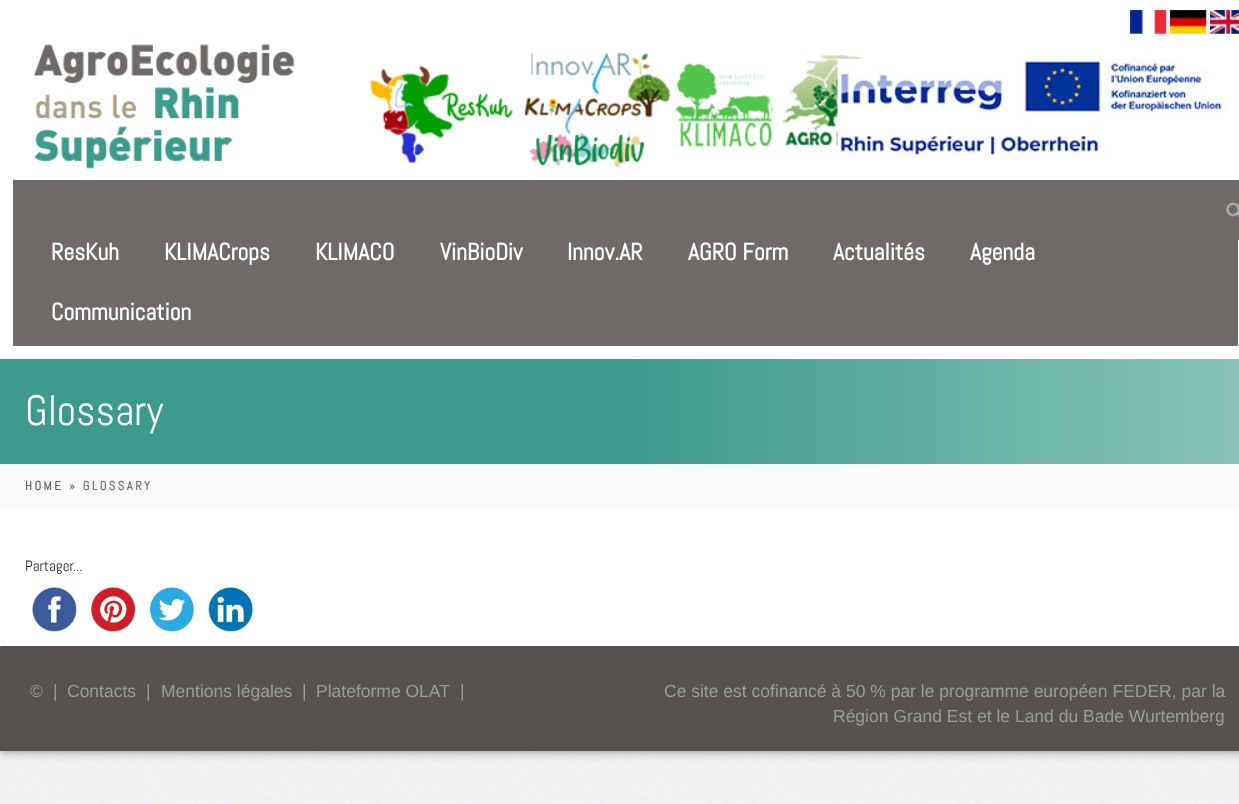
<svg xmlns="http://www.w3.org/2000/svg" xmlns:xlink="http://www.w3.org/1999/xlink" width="1239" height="804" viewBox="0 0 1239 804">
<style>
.cls-1{font:bold 23.75px Abel;fill:#ffffff}
.cls-2{font:42.5px Abel;fill:#ffffff}
.cls-3{font:bold 12.5px Abel;letter-spacing:2.5px;fill:#5c646d}
.cls-4{font:bold 12.5px Abel;letter-spacing:2.5px;fill:#6c7279}
.cls-5{font:15px Abel;fill:#272727}
.cls-6{font:17.5px Liberation Sans;fill:#9b9b9b}
</style>
<defs>
<linearGradient id="g1" gradientUnits="userSpaceOnUse" x1="0" y1="411" x2="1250" y2="411"><stop offset="0" stop-color="#3c9b8c"/><stop offset="0.5" stop-color="#3c9b8c"/><stop offset="1" stop-color="#8ac3ba"/></linearGradient>
</defs>
<rect width="100%" height="100%" fill="#ffffff"/>
<image xlink:href="image0.png" x="0" y="751" width="1239" height="53"/>
<rect fill="#000000" fill-opacity="0.4" filter="blur(5.5px)" x="0" y="0" width="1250" height="751"/>
<rect fill="#ffffff" x="0" y="0" width="1239" height="647"/>
<image xlink:href="image1.png" x="1130" y="10" width="37" height="24"/>
<image xlink:href="image2.png" x="1170" y="10" width="37" height="24"/>
<image xlink:href="image3.png" x="1210" y="10" width="29" height="24"/>
<image xlink:href="image4.png" x="370" y="52" width="496" height="116"/>
<image xlink:href="image5.png" x="33" y="44" width="262" height="125"/>
<image xlink:href="image6.png" x="837" y="58" width="388" height="101"/>
<rect fill="#6e6a67" x="13" y="180" width="1225" height="166"/>
<rect fill="#6e6a67" x="1238" y="180" width="1" height="60"/>
<image xlink:href="image7.png" x="1226" y="202" width="13" height="15"/>
<rect fill="url(#g1)" x="0" y="359" width="1239" height="105"/>
<rect fill="#f9f9f9" x="0" y="464" width="1239" height="45"/>
<image xlink:href="image8.png" x="32" y="587" width="45" height="45"/>
<image xlink:href="image9.png" x="91" y="587" width="44" height="45"/>
<image xlink:href="image10.png" x="150" y="587" width="44" height="45"/>
<image xlink:href="image11.png" x="208" y="587" width="45" height="45"/>
<path fill="#56534f" d="M1 646H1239.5C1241 646 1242 647 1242 648.5V751H0V647C0 646.5 .5 646 1 646Z"/>
<text class="cls-1" x="51" y="260">ResKuh</text>
<text class="cls-1" x="164" y="260">KLIMACrops</text>
<text class="cls-1" x="315" y="260">KLIMACO</text>
<text class="cls-1" x="440" y="260">VinBioDiv</text>
<text class="cls-1" x="567" y="260">Innov.AR</text>
<text class="cls-1" x="688" y="260">AGRO Form</text>
<text class="cls-1" x="833" y="260">Actualités</text>
<text class="cls-1" x="970" y="260">Agenda</text>
<text class="cls-1" x="51" y="320">Communication</text>
<text class="cls-2" x="25" y="425">Glossary</text>
<text class="cls-3" x="25" y="490">HOME</text>
<text class="cls-4" x="69" y="490">» GLOSSARY</text>
<text class="cls-5" x="25" y="571">Partager...</text>
<text class="cls-6" x="30" y="697">©</text>
<text class="cls-6" x="53" y="697">|</text>
<text class="cls-6" x="67" y="697">Contacts</text>
<text class="cls-6" x="146" y="697">|</text>
<text class="cls-6" x="161" y="697">Mentions légales</text>
<text class="cls-6" x="302" y="697">|</text>
<text class="cls-6" x="316" y="697">Plateforme OLAT</text>
<text class="cls-6" x="460" y="697">|</text>
<text class="cls-6" x="664" y="697">Ce site est cofinancé à 50 % par le programme européen FEDER, par la</text>
<text class="cls-6" x="833" y="722">Région Grand Est et le Land du Bade Wurtemberg</text>
</svg>
